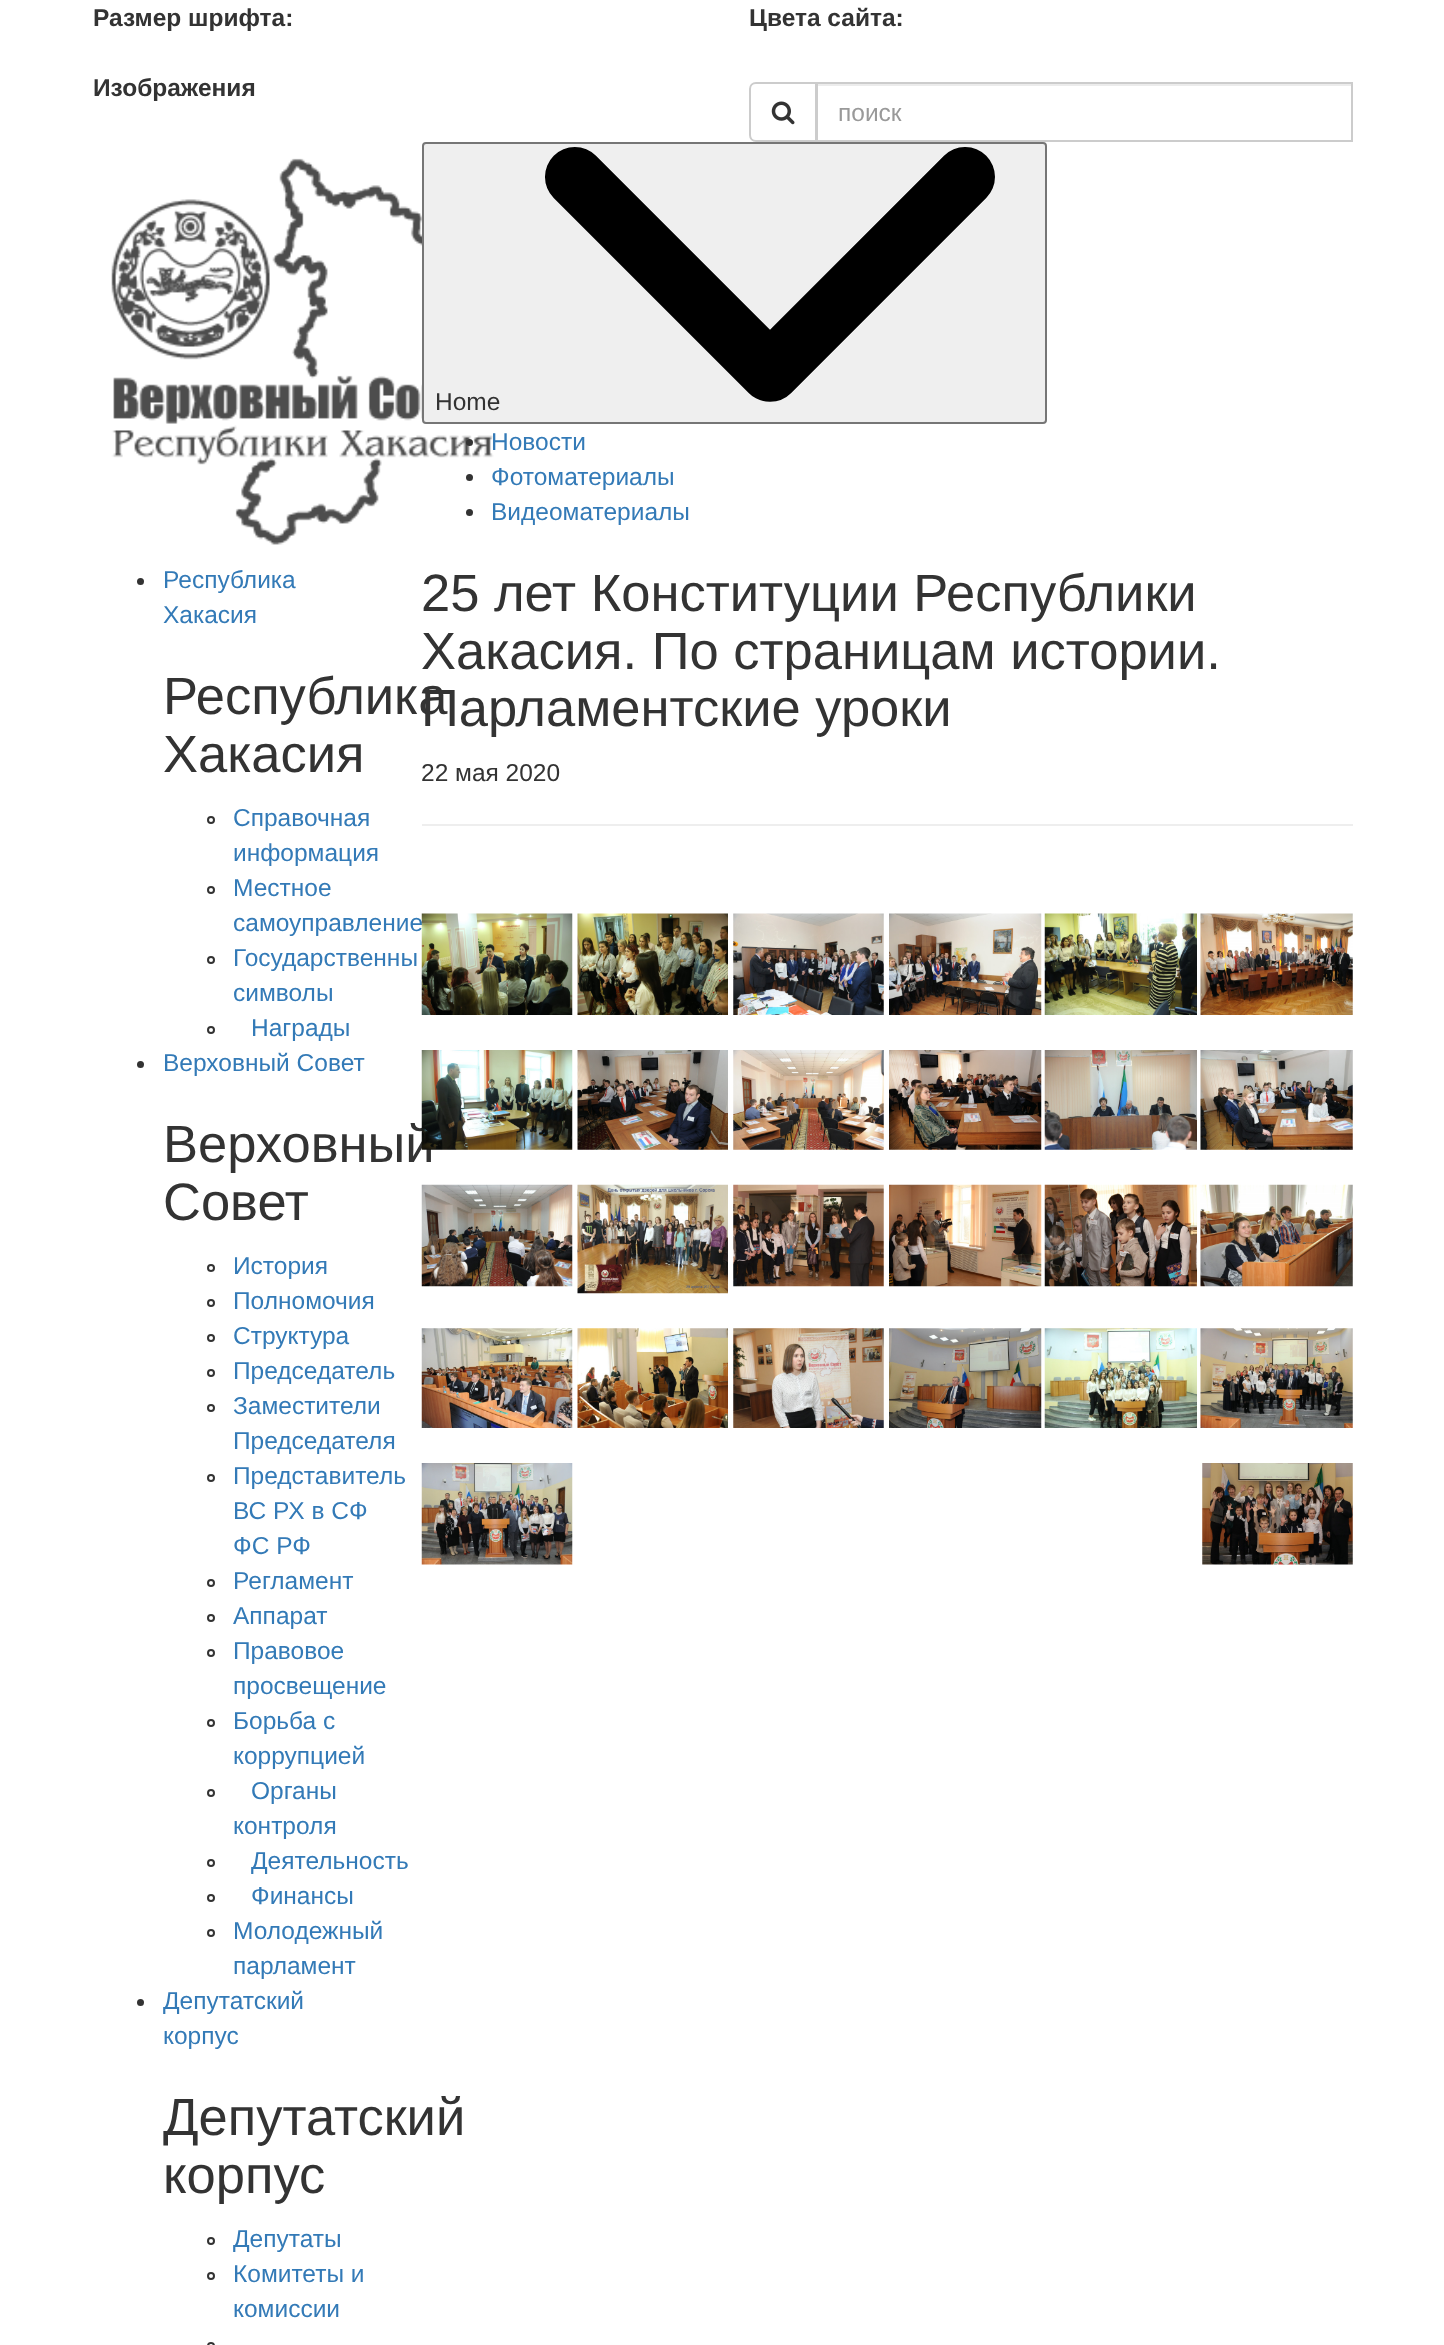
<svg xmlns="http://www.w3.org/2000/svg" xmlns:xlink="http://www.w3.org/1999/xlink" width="1444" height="2345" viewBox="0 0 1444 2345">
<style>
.cls-1{font:bold 24.5px Liberation Sans;fill:#333333}
.cls-2{font:24.5px Liberation Sans;fill:#999999}
.cls-3{font:24.5px Liberation Sans;fill:#337ab7}
.cls-4{font:52.5px Liberation Sans;fill:#333333}
.cls-5{font:24.5px Liberation Sans;fill:#333333}
</style>
<rect width="100%" height="100%" fill="#ffffff"/>
<path fill="none" stroke="#cccccc" stroke-width="2" d="M756 83H816V141H756C752.5 141 750 138.5 750 135V89C750 85.5 752.5 83 756 83Z"/>
<image xlink:href="image0.png" x="771" y="101" width="24" height="24"/>
<rect fill="#ececec" x="817" y="84" width="534" height="2"/>
<rect fill="none" stroke="#cccccc" stroke-width="2" x="817" y="83" width="535" height="58"/>
<image xlink:href="image1.png" x="111" y="158" width="383" height="387"/>
<circle fill="#333333" cx="140.5" cy="581.5" r="3.5"/>
<circle fill="none" stroke="#333333" stroke-width="2" cx="211" cy="820" r="3"/>
<circle fill="none" stroke="#333333" stroke-width="2" cx="211" cy="890" r="3"/>
<circle fill="none" stroke="#333333" stroke-width="2" cx="211" cy="960" r="3"/>
<circle fill="none" stroke="#333333" stroke-width="2" cx="211" cy="1030" r="3"/>
<circle fill="#333333" cx="140.5" cy="1064.5" r="3.5"/>
<circle fill="none" stroke="#333333" stroke-width="2" cx="211" cy="1268" r="3"/>
<circle fill="none" stroke="#333333" stroke-width="2" cx="211" cy="1303" r="3"/>
<circle fill="none" stroke="#333333" stroke-width="2" cx="211" cy="1338" r="3"/>
<circle fill="none" stroke="#333333" stroke-width="2" cx="211" cy="1373" r="3"/>
<circle fill="none" stroke="#333333" stroke-width="2" cx="211" cy="1408" r="3"/>
<circle fill="none" stroke="#333333" stroke-width="2" cx="211" cy="1478" r="3"/>
<circle fill="none" stroke="#333333" stroke-width="2" cx="211" cy="1583" r="3"/>
<circle fill="none" stroke="#333333" stroke-width="2" cx="211" cy="1618" r="3"/>
<circle fill="none" stroke="#333333" stroke-width="2" cx="211" cy="1653" r="3"/>
<circle fill="none" stroke="#333333" stroke-width="2" cx="211" cy="1723" r="3"/>
<circle fill="none" stroke="#333333" stroke-width="2" cx="211" cy="1793" r="3"/>
<circle fill="none" stroke="#333333" stroke-width="2" cx="211" cy="1863" r="3"/>
<circle fill="none" stroke="#333333" stroke-width="2" cx="211" cy="1898" r="3"/>
<circle fill="none" stroke="#333333" stroke-width="2" cx="211" cy="1933" r="3"/>
<circle fill="#333333" cx="140.5" cy="2002.5" r="3.5"/>
<circle fill="none" stroke="#333333" stroke-width="2" cx="211" cy="2241" r="3"/>
<circle fill="none" stroke="#333333" stroke-width="2" cx="211" cy="2276" r="3"/>
<circle fill="none" stroke="#333333" stroke-width="2" cx="211" cy="2346" r="3"/>
<rect fill="#efefef" stroke="#767676" stroke-width="2" x="423" y="143" width="623" height="280" rx="3"/>
<image xlink:href="image2.png" x="545" y="147" width="450" height="255"/>
<circle fill="#333333" cx="469.5" cy="442.5" r="3.5"/>
<circle fill="#333333" cx="469.5" cy="477.5" r="3.5"/>
<circle fill="#333333" cx="469.5" cy="512.5" r="3.5"/>
<rect fill="#eeeeee" x="422" y="824" width="931" height="2"/>
<image xlink:href="image4.png" x="577" y="913" width="151" height="102"/>
<image xlink:href="image5.png" x="733" y="913" width="151" height="102"/>
<image xlink:href="image6.png" x="889" y="913" width="153" height="102"/>
<image xlink:href="image7.png" x="1044" y="913" width="153" height="102"/>
<image xlink:href="image8.png" x="1200" y="913" width="153" height="102"/>
<image xlink:href="image10.png" x="577" y="1050" width="151" height="100"/>
<image xlink:href="image11.png" x="733" y="1050" width="151" height="100"/>
<image xlink:href="image12.png" x="889" y="1050" width="153" height="100"/>
<image xlink:href="image13.png" x="1044" y="1050" width="153" height="100"/>
<image xlink:href="image14.png" x="1200" y="1050" width="153" height="100"/>
<image xlink:href="image15.png" x="421" y="1184" width="152" height="103"/>
<image xlink:href="image16.png" x="577" y="1184" width="151" height="110"/>
<image xlink:href="image17.png" x="733" y="1184" width="151" height="103"/>
<image xlink:href="image18.png" x="889" y="1184" width="153" height="103"/>
<image xlink:href="image19.png" x="1044" y="1184" width="153" height="103"/>
<image xlink:href="image20.png" x="1200" y="1184" width="153" height="103"/>
<image xlink:href="image21.png" x="421" y="1328" width="152" height="100"/>
<image xlink:href="image22.png" x="577" y="1328" width="151" height="100"/>
<image xlink:href="image23.png" x="733" y="1328" width="151" height="100"/>
<image xlink:href="image24.png" x="889" y="1328" width="153" height="100"/>
<image xlink:href="image25.png" x="1044" y="1328" width="153" height="100"/>
<image xlink:href="image26.png" x="1200" y="1328" width="153" height="100"/>
<image xlink:href="image27.png" x="421" y="1463" width="152" height="102"/>
<image xlink:href="image28.png" x="1202" y="1463" width="151" height="102"/>
<text class="cls-1" x="93" y="26">Размер шрифта:</text>
<text class="cls-1" x="749" y="26">Цвета сайта:</text>
<text class="cls-1" x="93" y="96">Изображения</text>
<text class="cls-2" x="838" y="121">поиск</text>
<text class="cls-3"><tspan x="163" y="588">Республика</tspan><tspan x="163" y="623">Хакасия</tspan></text>
<text class="cls-4"><tspan x="163" y="714">Республика</tspan><tspan x="163" y="772">Хакасия</tspan></text>
<text class="cls-3"><tspan x="233" y="826">Справочная</tspan><tspan x="233" y="861">информация</tspan><tspan x="233" y="896">Местное</tspan><tspan x="233" y="931">самоуправление</tspan><tspan x="233" y="966">Государственны</tspan><tspan x="233" y="1001">символы</tspan></text>
<text class="cls-3" x="251" y="1036">Награды</text>
<text class="cls-3" x="163" y="1071">Верховный Совет</text>
<text class="cls-4"><tspan x="163" y="1162">Верховный</tspan><tspan x="163" y="1220">Совет</tspan></text>
<text class="cls-3"><tspan x="233" y="1274">История</tspan><tspan x="233" y="1309">Полномочия</tspan><tspan x="233" y="1344">Структура</tspan><tspan x="233" y="1379">Председатель</tspan><tspan x="233" y="1414">Заместители</tspan><tspan x="233" y="1449">Председателя</tspan><tspan x="233" y="1484">Представитель</tspan><tspan x="233" y="1519">ВС РХ в СФ</tspan><tspan x="233" y="1554">ФС РФ</tspan><tspan x="233" y="1589">Регламент</tspan><tspan x="233" y="1624">Аппарат</tspan><tspan x="233" y="1659">Правовое</tspan><tspan x="233" y="1694">просвещение</tspan><tspan x="233" y="1729">Борьба с</tspan><tspan x="233" y="1764">коррупцией</tspan></text>
<text class="cls-3" x="251" y="1799">Органы</text>
<text class="cls-3" x="233" y="1834">контроля</text>
<text class="cls-3"><tspan x="251" y="1869">Деятельность</tspan><tspan x="251" y="1904">Финансы</tspan></text>
<text class="cls-3"><tspan x="233" y="1939">Молодежный</tspan><tspan x="233" y="1974">парламент</tspan></text>
<text class="cls-3"><tspan x="163" y="2009">Депутатский</tspan><tspan x="163" y="2044">корпус</tspan></text>
<text class="cls-4"><tspan x="163" y="2135">Депутатский</tspan><tspan x="163" y="2193">корпус</tspan></text>
<text class="cls-3"><tspan x="233" y="2247">Депутаты</tspan><tspan x="233" y="2282">Комитеты и</tspan><tspan x="233" y="2317">комиссии</tspan></text>
<text class="cls-5" x="435" y="410">Home</text>
<text class="cls-3"><tspan x="491" y="450">Новости</tspan><tspan x="491" y="485">Фотоматериалы</tspan><tspan x="491" y="520">Видеоматериалы</tspan></text>
<text class="cls-4"><tspan x="421" y="611">25 лет Конституции Республики</tspan><tspan x="421" y="669">Хакасия. По страницам истории.</tspan><tspan x="421" y="726">Парламентские уроки</tspan></text>
<text class="cls-5" x="421" y="781">22 мая 2020</text>
<image xlink:href="image3.png" x="421" y="913" width="152" height="102"/>
<image xlink:href="image9.png" x="421" y="1050" width="152" height="100"/>
</svg>
